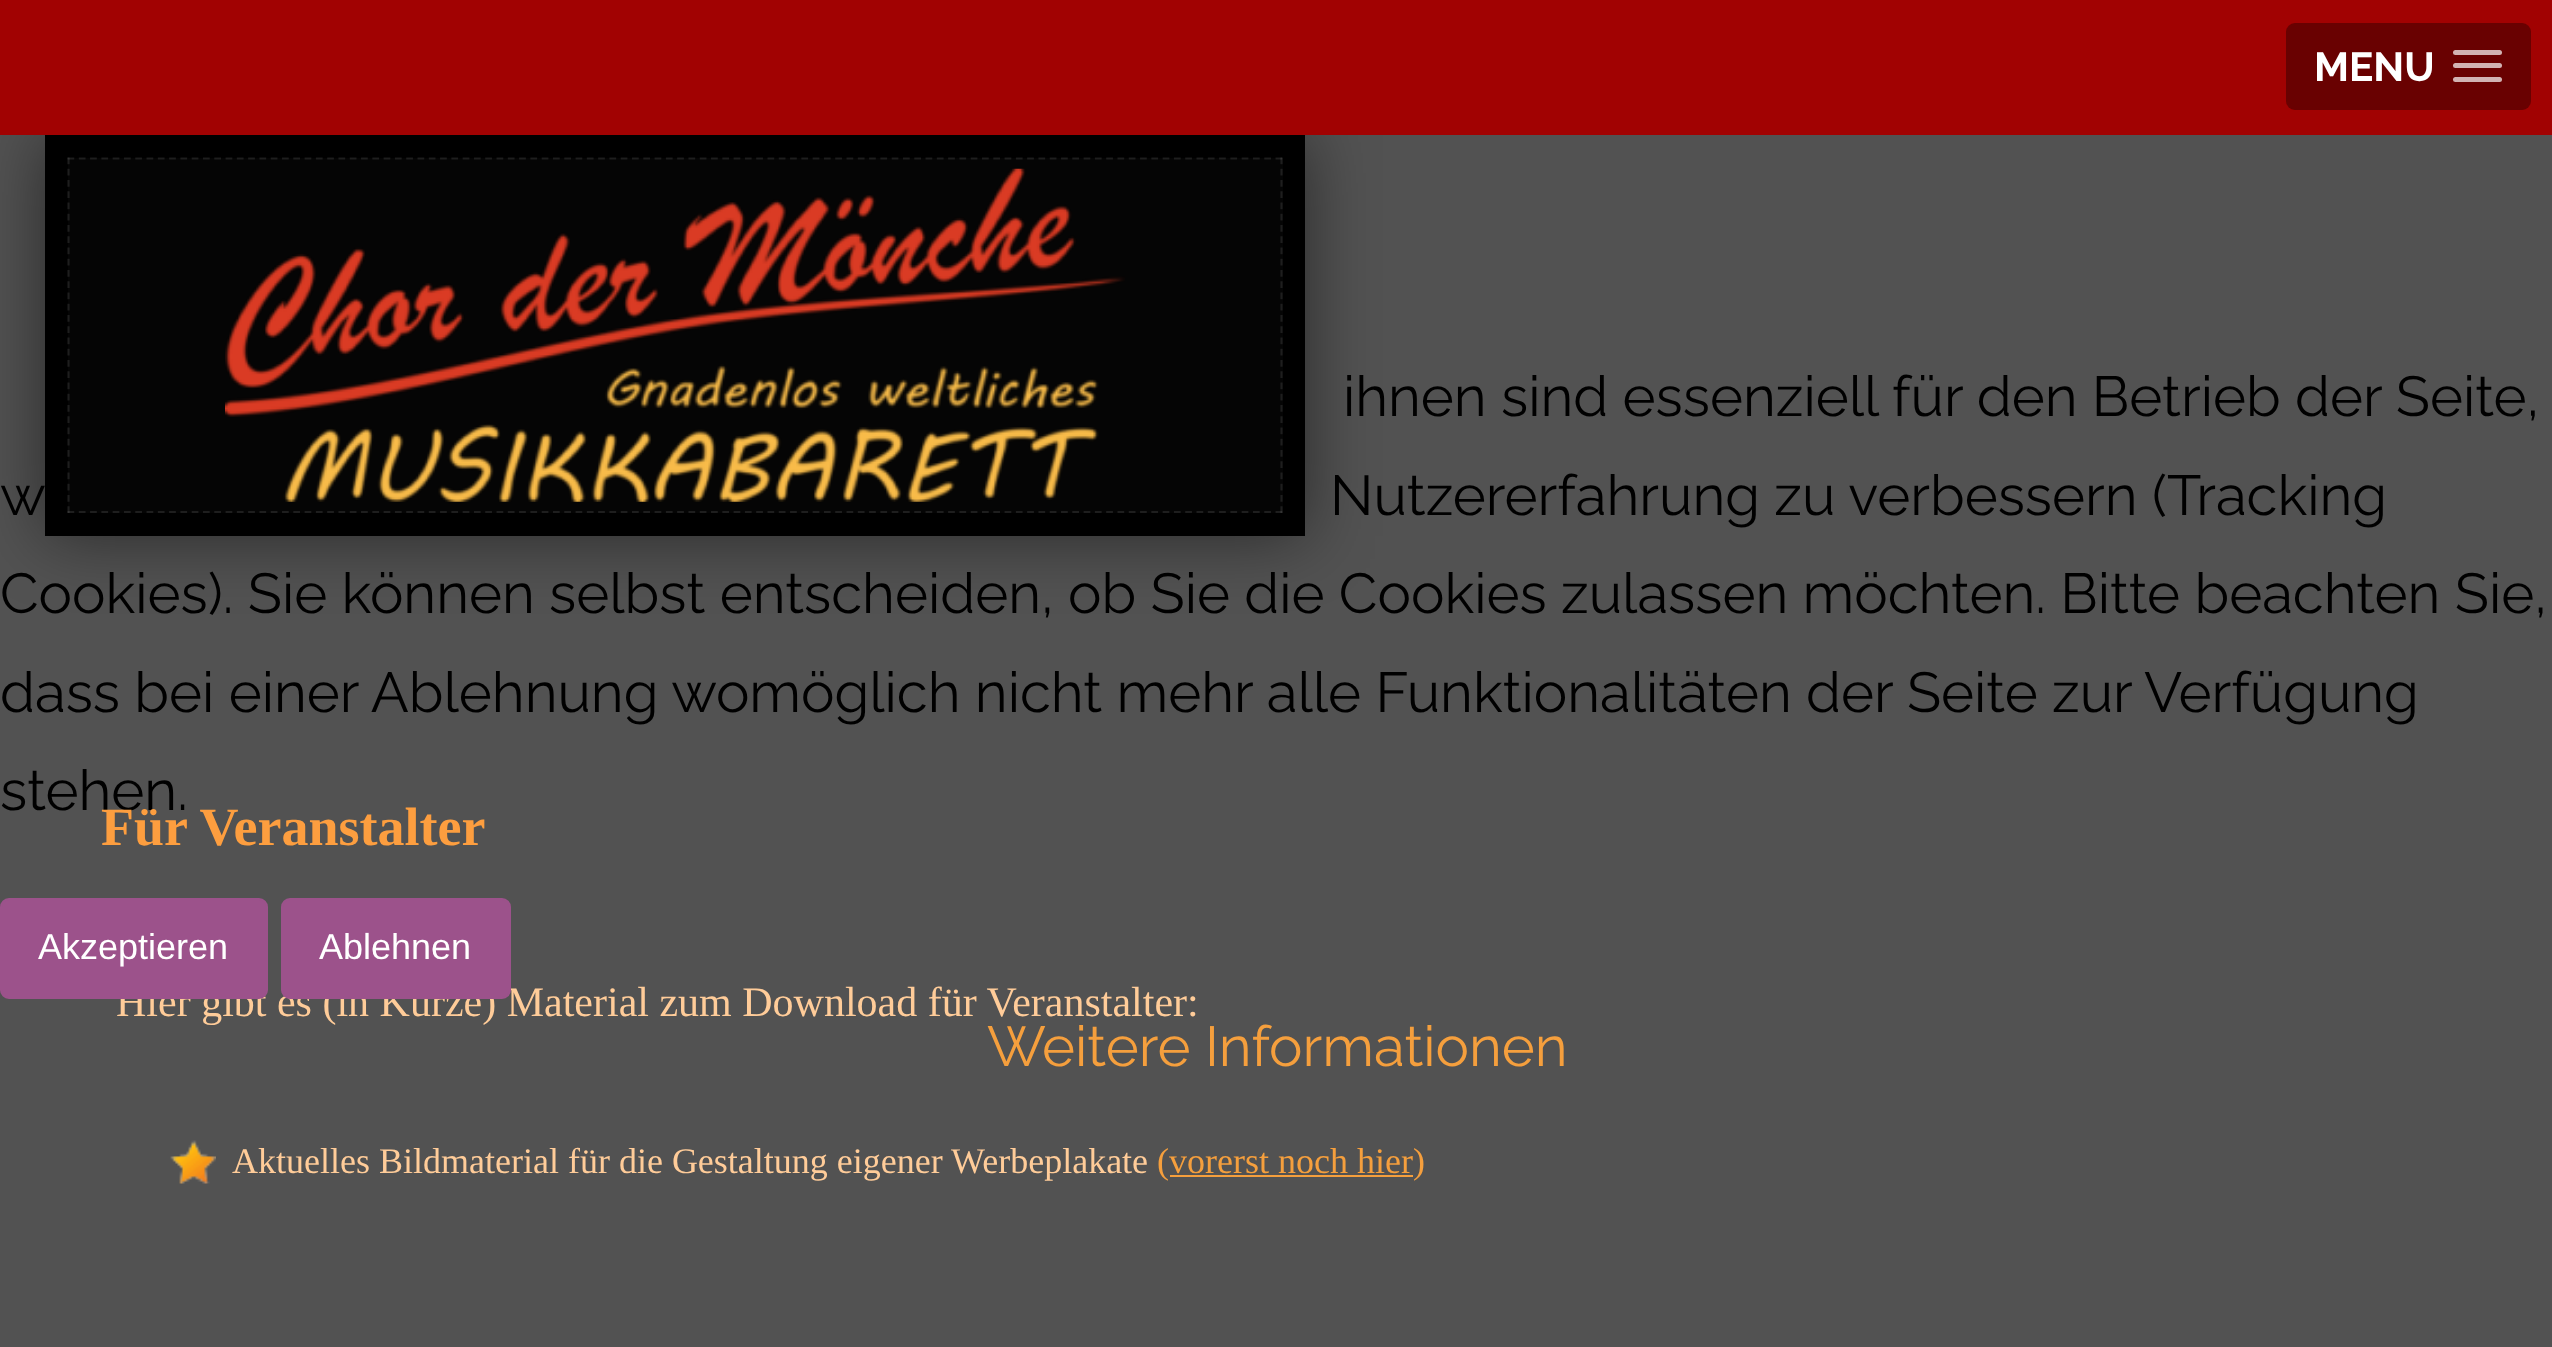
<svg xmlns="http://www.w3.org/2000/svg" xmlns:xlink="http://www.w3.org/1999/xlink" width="2552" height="1347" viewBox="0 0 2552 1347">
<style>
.cls-1{font:bold 40.5px Raleway;fill:#ffffff}
.cls-2{font:56.25px Raleway;fill:#000000}
.cls-3{font:56.25px Raleway;fill:#f59f3d}
.cls-4{font:bold 54px Liberation Serif;fill:#fd9e3f}
.cls-5{font:42px Liberation Serif;fill:#ffcc99}
.cls-6{font:36px Liberation Sans;fill:#ffffff}
.cls-7{font:36px Liberation Serif;fill:#ffcc99}
.cls-8{font:36px Liberation Serif;fill:#f59f3d}
</style>
<rect width="100%" height="100%" fill="#525252"/>
<rect fill="#000000" fill-opacity="0.5" filter="blur(34px)" x="45" y="135" width="1260" height="401"/>
<rect fill="#000000" x="45" y="135" width="1260" height="401"/>
<rect fill="#050505" x="68" y="158" width="1215" height="355"/>
<path fill="none" stroke="#ffffff" stroke-opacity="0.1" stroke-width="2.2" stroke-dasharray="6.75 4.54" d="M67.5 158.5H1282.5"/>
<path fill="none" stroke="#ffffff" stroke-opacity="0.1" stroke-width="2.2" stroke-dasharray="6.75 4.5" d="M1281.5 157.5V513"/>
<path fill="none" stroke="#ffffff" stroke-opacity="0.1" stroke-width="2.2" stroke-dasharray="6.75 4.54" d="M67.5 512H1282.5"/>
<path fill="none" stroke="#ffffff" stroke-opacity="0.1" stroke-width="2.2" stroke-dasharray="6.75 4.5" d="M68.5 157.5V513"/>
<image xlink:href="image0.png" x="225" y="168" width="900" height="334"/>
<rect fill="#a10202" x="0" y="0" width="2552" height="135"/>
<rect fill="#690101" x="2286" y="23" width="245" height="87" rx="9"/>
<rect fill="#d2b3b3" x="2453" y="50" width="49" height="5" rx="2.5"/>
<rect fill="#d2b3b3" x="2453" y="63" width="49" height="5" rx="2.5"/>
<rect fill="#d2b3b3" x="2453" y="77" width="49" height="5" rx="2.5"/>
<image xlink:href="image1.png" x="170" y="1140" width="46" height="44"/>
<rect fill="#f59f3d" x="1170" y="1175" width="243" height="2"/>
<text class="cls-1" x="2314" y="81">MENU</text>
<text class="cls-2" x="1343" y="416">ihnen sind essenziell für den Betrieb der Seite,</text>
<text class="cls-2" x="0" y="515">w</text>
<text class="cls-2" x="1330" y="515">Nutzererfahrung zu verbessern (Tracking</text>
<text class="cls-2"><tspan x="0" y="613">Cookies). Sie können selbst entscheiden, ob Sie die Cookies zulassen möchten. Bitte beachten Sie,</tspan><tspan x="0" y="712">dass bei einer Ablehnung womöglich nicht mehr alle Funktionalitäten der Seite zur Verfügung</tspan><tspan x="0" y="810">stehen.</tspan></text>
<text class="cls-3" x="987" y="1066">Weitere Informationen</text>
<text class="cls-4" x="101" y="845">Für Veranstalter</text>
<text class="cls-5" x="116" y="1016">Hier gibt es (in Kürze) Material zum Download für Veranstalter:</text>
<rect fill="#9c528b" stroke="#9c528b" stroke-width="2" x="282" y="899" width="228" height="99" rx="8"/>
<text class="cls-6" x="319" y="959">Ablehnen</text>
<rect fill="#9c528b" stroke="#9c528b" stroke-width="2" x="1" y="899" width="266" height="99" rx="8"/>
<text class="cls-6" x="38" y="959">Akzeptieren</text>
<text class="cls-7" x="232" y="1173">Aktuelles Bildmaterial für die Gestaltung eigener Werbeplakate</text>
<text class="cls-8" x="1157" y="1173">(vorerst noch hier)</text>
</svg>
